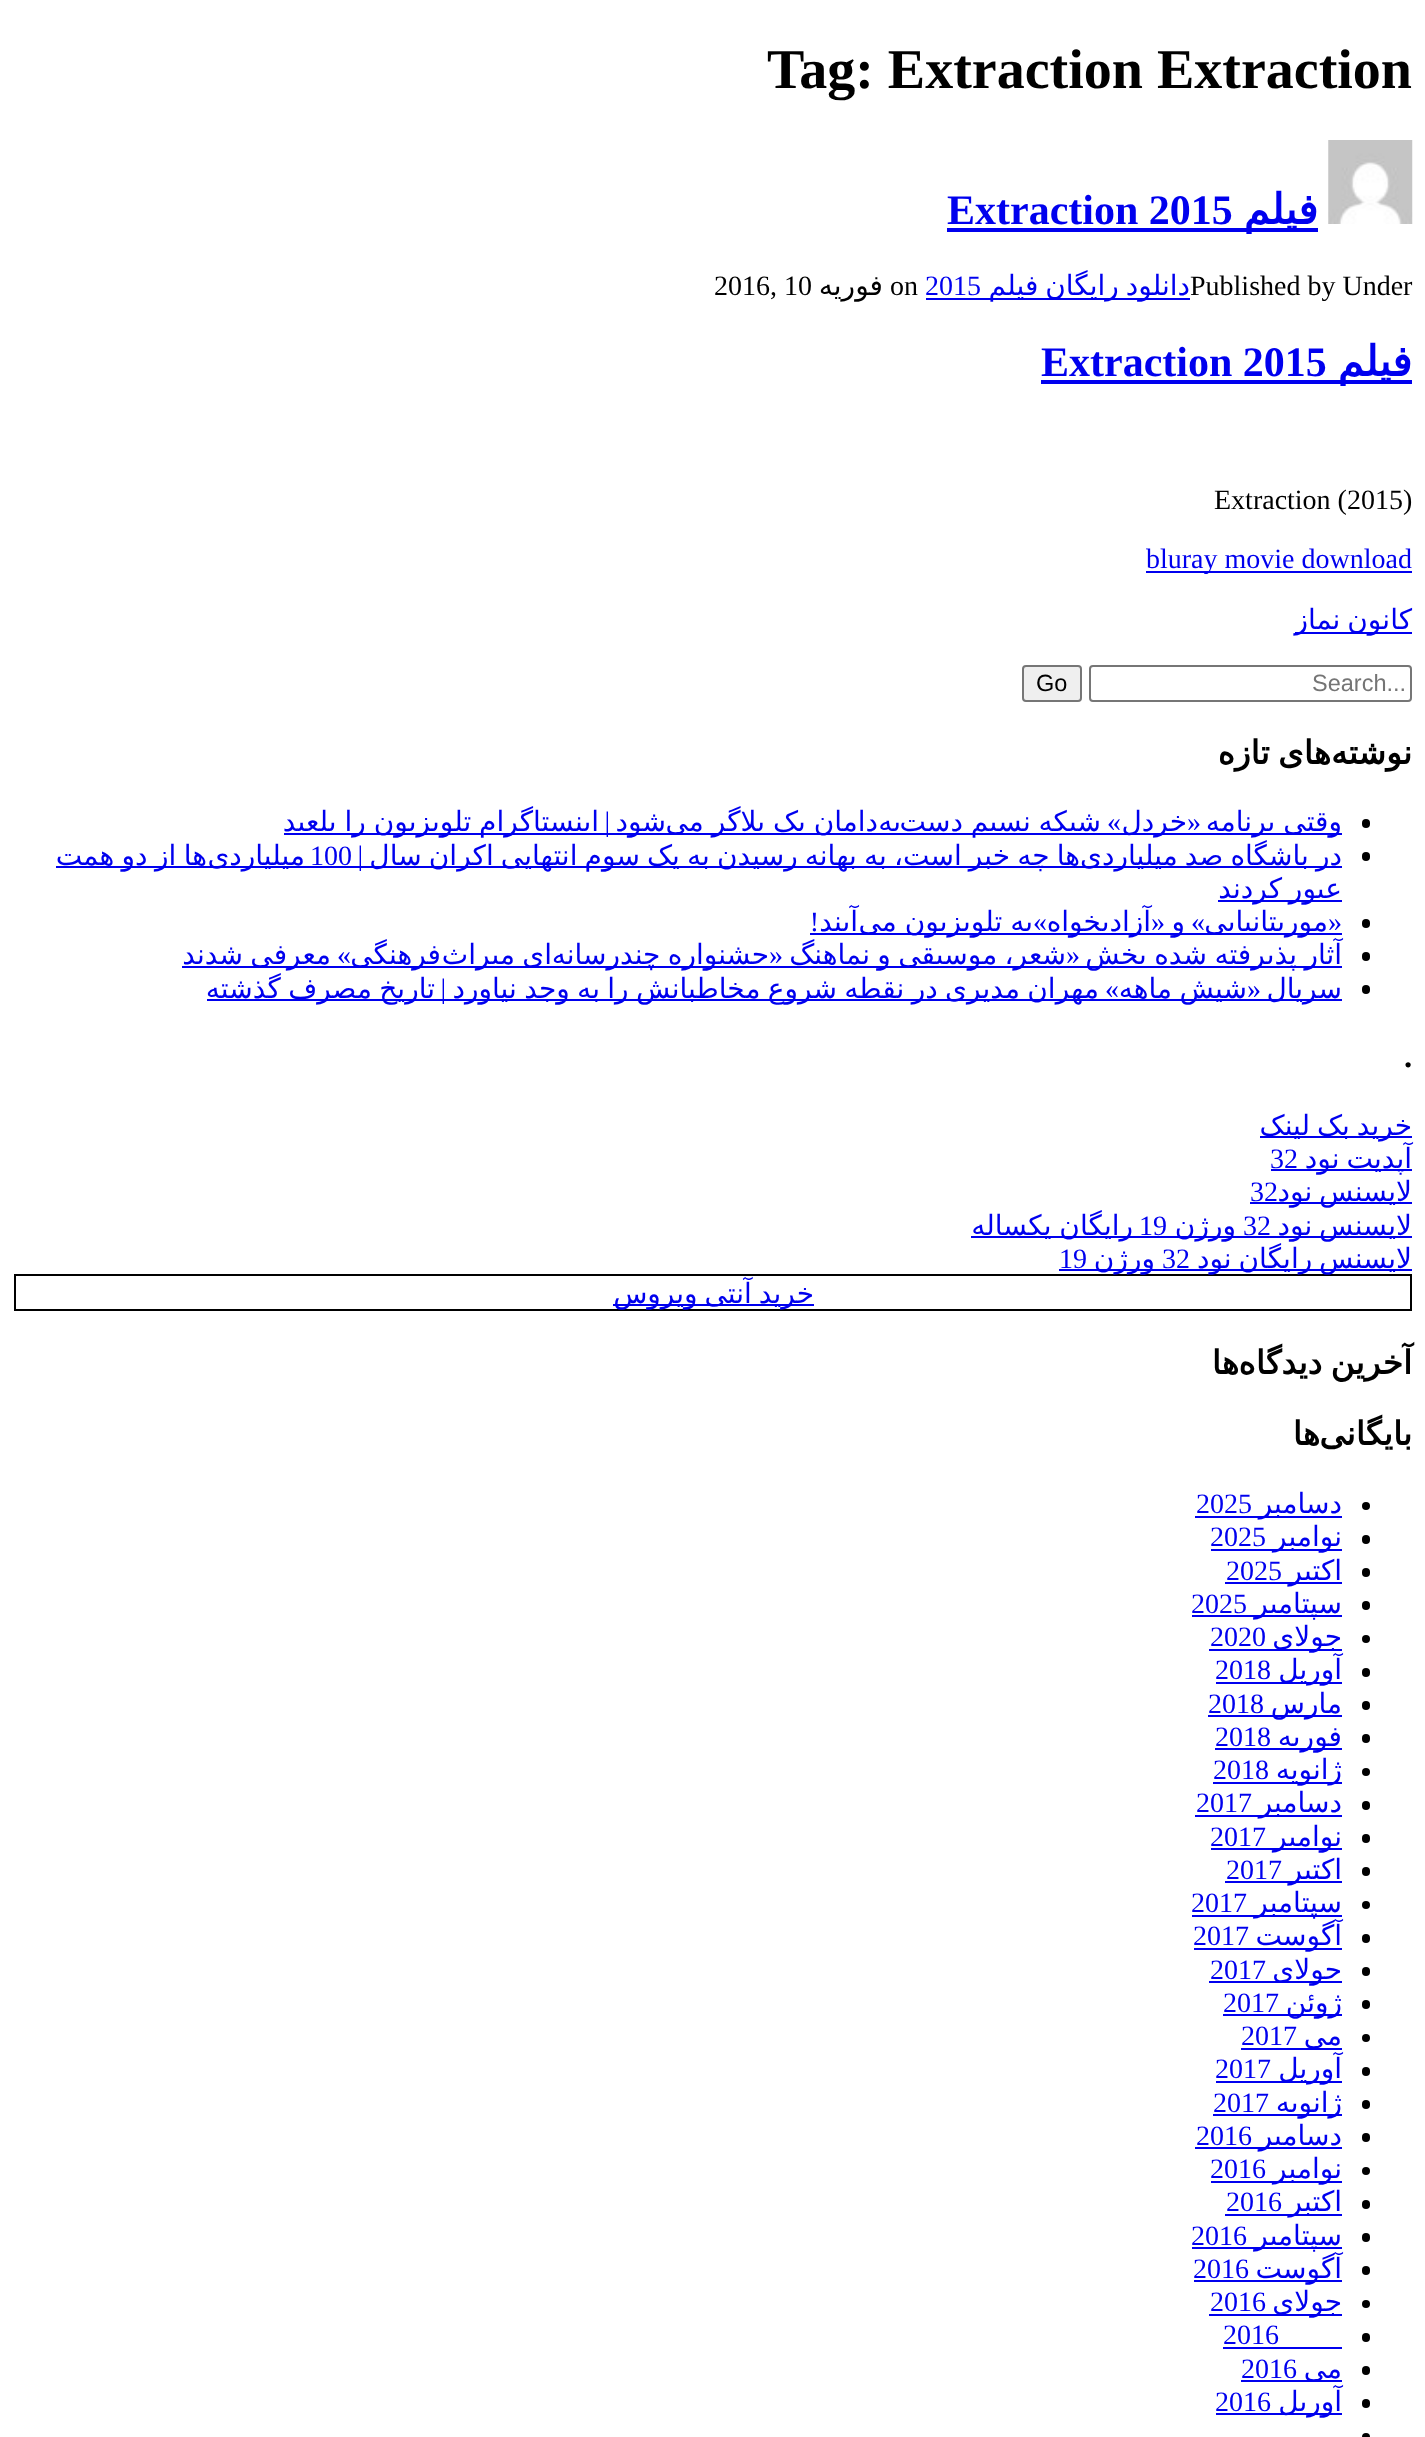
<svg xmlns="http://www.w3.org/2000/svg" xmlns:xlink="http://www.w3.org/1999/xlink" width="1425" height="2437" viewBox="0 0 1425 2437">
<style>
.cls-1{font:bold 56px Liberation Serif;fill:#000000}
.cls-2{font:bold 42px DejaVu Sans;direction:rtl;fill:#0000ee}
.cls-3{font:bold 42px Liberation Serif;fill:#0000ee}
.cls-4{font:28px Liberation Serif;fill:#000000}
.cls-5{font:28px DejaVu Sans;direction:rtl;fill:#0000ee}
.cls-6{font:28px Liberation Serif;fill:#0000ee}
.cls-7{font:28px DejaVu Sans;direction:rtl;fill:#000000}
.cls-8{font:23.5px Liberation Sans;fill:#757575}
.cls-9{font:23.5px Liberation Sans;fill:#000000}
.cls-10{font:bold 32.75px DejaVu Sans;direction:rtl;fill:#000000}
.cls-11{font:28px Liberation Serif;direction:rtl;fill:#0000ee}
.cls-12{font:bold 32.75px Liberation Serif;fill:#000000}
</style>
<rect width="100%" height="100%" fill="#ffffff"/>
<image xlink:href="image0.png" x="1328" y="140" width="85" height="84"/>
<rect fill="#0000ee" x="947" y="228" width="371" height="4"/>
<rect fill="#0000ee" x="926" y="298" width="264" height="2"/>
<rect fill="#0000ee" x="1041" y="380" width="371" height="4"/>
<rect fill="#0000ee" x="1146" y="571" width="266" height="2"/>
<rect fill="#0000ee" x="1295" y="632" width="117" height="2"/>
<rect fill="none" stroke="#767676" stroke-width="2" x="1090" y="666" width="321" height="35" rx="3"/>
<rect fill="#efefef" stroke="#767676" stroke-width="2" x="1023" y="666" width="58" height="35" rx="3"/>
<rect fill="#000000" x="1362" y="819" width="8" height="9" rx="4"/>
<rect fill="#0000ee" x="284" y="833" width="1058" height="2"/>
<rect fill="#000000" x="1362" y="852" width="8" height="9" rx="4"/>
<rect fill="#0000ee" x="56" y="866" width="1286" height="2"/>
<rect fill="#0000ee" x="1218" y="900" width="124" height="2"/>
<rect fill="#000000" x="1362" y="919" width="8" height="9" rx="4"/>
<rect fill="#0000ee" x="810" y="933" width="532" height="2"/>
<rect fill="#000000" x="1362" y="952" width="8" height="9" rx="4"/>
<rect fill="#0000ee" x="182" y="966" width="1160" height="2"/>
<rect fill="#000000" x="1362" y="985" width="8" height="9" rx="4"/>
<rect fill="#0000ee" x="207" y="999" width="1135" height="2"/>
<rect fill="#0000ee" x="1260" y="1136" width="152" height="2"/>
<rect fill="#0000ee" x="1271" y="1169" width="141" height="2"/>
<rect fill="#0000ee" x="1250" y="1202" width="162" height="2"/>
<rect fill="#0000ee" x="971" y="1236" width="441" height="2"/>
<rect fill="#0000ee" x="1059" y="1269" width="353" height="2"/>
<rect fill="none" stroke="#000000" stroke-width="2" x="15" y="1275" width="1396" height="35"/>
<rect fill="#0000ee" x="613" y="1304" width="201" height="2"/>
<circle fill="#000000" cx="1366" cy="1506" r="4"/>
<rect fill="#0000ee" x="1195" y="1516" width="147" height="2"/>
<rect fill="#000000" x="1362" y="1535" width="8" height="9" rx="4"/>
<rect fill="#0000ee" x="1211" y="1549" width="131" height="2"/>
<rect fill="#000000" x="1362" y="1568" width="8" height="9" rx="4"/>
<rect fill="#0000ee" x="1225" y="1582" width="117" height="2"/>
<rect fill="#000000" x="1362" y="1601" width="8" height="9" rx="4"/>
<rect fill="#0000ee" x="1192" y="1615" width="150" height="2"/>
<circle fill="#000000" cx="1366" cy="1639" r="4"/>
<rect fill="#0000ee" x="1209" y="1649" width="133" height="2"/>
<rect fill="#000000" x="1362" y="1668" width="8" height="9" rx="4"/>
<rect fill="#0000ee" x="1216" y="1682" width="126" height="2"/>
<rect fill="#000000" x="1362" y="1701" width="8" height="9" rx="4"/>
<rect fill="#0000ee" x="1208" y="1715" width="134" height="2"/>
<rect fill="#000000" x="1362" y="1734" width="8" height="9" rx="4"/>
<rect fill="#0000ee" x="1215" y="1748" width="127" height="2"/>
<circle fill="#000000" cx="1366" cy="1772" r="4"/>
<rect fill="#0000ee" x="1213" y="1782" width="129" height="2"/>
<rect fill="#000000" x="1362" y="1801" width="8" height="9" rx="4"/>
<rect fill="#0000ee" x="1195" y="1815" width="147" height="2"/>
<rect fill="#000000" x="1362" y="1834" width="8" height="9" rx="4"/>
<rect fill="#0000ee" x="1211" y="1848" width="131" height="2"/>
<rect fill="#000000" x="1362" y="1867" width="8" height="9" rx="4"/>
<rect fill="#0000ee" x="1225" y="1881" width="117" height="2"/>
<circle fill="#000000" cx="1366" cy="1905" r="4"/>
<rect fill="#0000ee" x="1192" y="1915" width="150" height="2"/>
<rect fill="#000000" x="1362" y="1934" width="8" height="9" rx="4"/>
<rect fill="#0000ee" x="1194" y="1948" width="148" height="2"/>
<rect fill="#000000" x="1362" y="1967" width="8" height="9" rx="4"/>
<rect fill="#0000ee" x="1209" y="1981" width="133" height="2"/>
<rect fill="#000000" x="1362" y="2000" width="8" height="9" rx="4"/>
<rect fill="#0000ee" x="1223" y="2014" width="119" height="2"/>
<circle fill="#000000" cx="1366" cy="2038" r="4"/>
<rect fill="#0000ee" x="1241" y="2048" width="101" height="2"/>
<rect fill="#000000" x="1362" y="2067" width="8" height="9" rx="4"/>
<rect fill="#0000ee" x="1216" y="2081" width="126" height="2"/>
<rect fill="#000000" x="1362" y="2100" width="8" height="9" rx="4"/>
<rect fill="#0000ee" x="1213" y="2114" width="129" height="2"/>
<rect fill="#000000" x="1362" y="2133" width="8" height="9" rx="4"/>
<rect fill="#0000ee" x="1195" y="2147" width="147" height="2"/>
<circle fill="#000000" cx="1366" cy="2171" r="4"/>
<rect fill="#0000ee" x="1211" y="2181" width="131" height="2"/>
<rect fill="#000000" x="1362" y="2200" width="8" height="9" rx="4"/>
<rect fill="#0000ee" x="1225" y="2214" width="117" height="2"/>
<rect fill="#000000" x="1362" y="2233" width="8" height="9" rx="4"/>
<rect fill="#0000ee" x="1192" y="2247" width="150" height="2"/>
<rect fill="#000000" x="1362" y="2266" width="8" height="9" rx="4"/>
<rect fill="#0000ee" x="1194" y="2280" width="148" height="2"/>
<circle fill="#000000" cx="1366" cy="2304" r="4"/>
<rect fill="#0000ee" x="1209" y="2314" width="133" height="2"/>
<rect fill="#000000" x="1362" y="2333" width="8" height="9" rx="4"/>
<rect fill="#0000ee" x="1223" y="2347" width="119" height="2"/>
<rect fill="#000000" x="1362" y="2366" width="8" height="9" rx="4"/>
<rect fill="#0000ee" x="1241" y="2380" width="101" height="2"/>
<rect fill="#000000" x="1362" y="2399" width="8" height="9" rx="4"/>
<rect fill="#0000ee" x="1216" y="2413" width="126" height="2"/>
<circle fill="#000000" cx="1366" cy="2437" r="4"/>
<text class="cls-1" x="767" y="88">Tag: Extraction Extraction</text>
<text class="cls-2" x="1318" y="224">فیلم</text>
<text class="cls-3" x="947" y="224">Extraction 2015</text>
<text class="cls-4" x="1190" y="295">Published by Under</text>
<text class="cls-5" x="1190" y="295" word-spacing="-2">دانلود رایگان فیلم</text>
<text class="cls-6" x="925" y="295">2015</text>
<text class="cls-4" x="890" y="295">on</text>
<text class="cls-7" x="883" y="295">فوریه</text>
<text class="cls-4" x="714" y="295">2016, 10</text>
<text class="cls-2" x="1412" y="376">فیلم</text>
<text class="cls-3" x="1041" y="376">Extraction 2015</text>
<text class="cls-4" x="1214" y="509">Extraction (2015)</text>
<text class="cls-6" x="1146" y="568">bluray movie download</text>
<text class="cls-5" x="1412" y="629" word-spacing="-2">کانون نماز</text>
<text class="cls-8" x="1312" y="691">Search...</text>
<text class="cls-9" x="1036" y="691">Go</text>
<text class="cls-10" x="1412" y="764">نوشته</text>
<text class="cls-10" x="1331" y="764" word-spacing="-2">های تازه</text>
<text class="cls-5" x="1342" y="831" word-spacing="-1">وقتی برنامه</text>
<text class="cls-11" x="1201" y="831">«</text>
<text class="cls-5" x="1187" y="831">خردل</text>
<text class="cls-11" x="1121" y="831">»</text>
<text class="cls-5" x="1101" y="831" word-spacing="-1">شبکه نسیم دست</text>
<text class="cls-5" x="878" y="831" word-spacing="-1">دامان یک بلاگر می</text>
<text class="cls-5" x="901" y="831">به</text>
<text class="cls-5" x="666" y="831">شود</text>
<text class="cls-11" x="610" y="831">|</text>
<text class="cls-5" x="599" y="831" word-spacing="-1">اینستاگرام تلویزیون را بلعید</text>
<text class="cls-5" x="1080" y="865" word-spacing="-1.75">ها چه خبر است، به بهانه رسیدن به یک سوم انتهایی اکران سال</text>
<text class="cls-5" x="1342" y="865" word-spacing="-1.75">در باشگاه صد میلیاردی</text>
<text class="cls-11" x="363" y="865">|</text>
<text class="cls-6" x="310" y="865">100</text>
<text class="cls-5" x="207" y="865" word-spacing="-1.5">ها از دو همت</text>
<text class="cls-5" x="305" y="865">میلیاردی</text>
<text class="cls-5" x="1342" y="898" word-spacing="-2">عبور کردند</text>
<text class="cls-11" x="1342" y="931">«</text>
<text class="cls-5" x="1328" y="931">موریتانیایی</text>
<text class="cls-11" x="1205" y="931">»</text>
<text class="cls-5" x="1185" y="931">و</text>
<text class="cls-11" x="1165" y="931">«</text>
<text class="cls-5" x="1151" y="931">آزادیخواه</text>
<text class="cls-11" x="1047" y="931">»</text>
<text class="cls-5" x="858" y="931">آیند</text>
<text class="cls-5" x="1033" y="931" word-spacing="-1">به تلویزیون می</text>
<text class="cls-11" x="819" y="931">!</text>
<text class="cls-5" x="1342" y="964" word-spacing="-1.5">آثار پذیرفته شده بخش</text>
<text class="cls-5" x="1066" y="964" word-spacing="-1.5">شعر، موسیقی و نماهنگ</text>
<text class="cls-11" x="1080" y="964">«</text>
<text class="cls-11" x="783" y="964">«</text>
<text class="cls-5" x="769" y="964" word-spacing="-1.5">جشنواره چندرسانه</text>
<text class="cls-5" x="552" y="964" word-spacing="-1.5">ای میراث</text>
<text class="cls-5" x="441" y="964">فرهنگی</text>
<text class="cls-11" x="351" y="964">»</text>
<text class="cls-5" x="331" y="964" word-spacing="-1.5">معرفی شدند</text>
<text class="cls-5" x="1342" y="998">سریال</text>
<text class="cls-11" x="1261" y="998">«</text>
<text class="cls-5" x="1247" y="998" word-spacing="-1.5">شیش ماهه</text>
<text class="cls-5" x="1099" y="998" word-spacing="-1.5">مهران مدیری در نقطه شروع مخاطبانش را به وجد نیاورد</text>
<text class="cls-11" x="1119" y="998">»</text>
<text class="cls-11" x="446" y="998">|</text>
<text class="cls-5" x="435" y="998" word-spacing="-1.5">تاریخ مصرف گذشته</text>
<text class="cls-12" x="1404" y="1067">.</text>
<text class="cls-5"><tspan x="1412" y="1135" word-spacing="-2">خرید بک لینک</tspan><tspan x="1412" y="1168" word-spacing="-2">آپدیت نود</tspan></text>
<text class="cls-6" x="1270" y="1168">32</text>
<text class="cls-5" x="1412" y="1201" word-spacing="-2">لایسنس نود</text>
<text class="cls-6" x="1250" y="1201">32</text>
<text class="cls-5" x="1412" y="1235" word-spacing="-2">لایسنس نود</text>
<text class="cls-6" x="1243" y="1235">32</text>
<text class="cls-5" x="1236" y="1235">ورژن</text>
<text class="cls-6" x="1139" y="1235">19</text>
<text class="cls-5" x="1133" y="1235" word-spacing="-1">رایگان یکساله</text>
<text class="cls-5" x="1412" y="1268" word-spacing="-2">لایسنس رایگان نود</text>
<text class="cls-6" x="1162" y="1268">32</text>
<text class="cls-5" x="1155" y="1268">ورژن</text>
<text class="cls-6" x="1059" y="1268">19</text>
<text class="cls-5" x="814" y="1303" word-spacing="-2">خرید آنتی ویروس</text>
<text class="cls-10" x="1412" y="1374" word-spacing="-2">آخرین دیدگاه</text>
<text class="cls-10" x="1239" y="1374">ها</text>
<text class="cls-10" x="1412" y="1445">بایگانی</text>
<text class="cls-10" x="1320" y="1445">ها</text>
<text class="cls-5" x="1342" y="1513">دسامبر</text>
<text class="cls-6" x="1196" y="1513">2025</text>
<text class="cls-5" x="1342" y="1546">نوامبر</text>
<text class="cls-6" x="1210" y="1546">2025</text>
<text class="cls-5" x="1342" y="1580">اکتبر</text>
<text class="cls-6" x="1226" y="1580">2025</text>
<text class="cls-5" x="1342" y="1613">سپتامبر</text>
<text class="cls-6" x="1191" y="1613">2025</text>
<text class="cls-5" x="1342" y="1646">جولای</text>
<text class="cls-6" x="1210" y="1646">2020</text>
<text class="cls-5" x="1342" y="1679">آوریل</text>
<text class="cls-6" x="1215" y="1679">2018</text>
<text class="cls-5" x="1342" y="1713">مارس</text>
<text class="cls-6" x="1208" y="1713">2018</text>
<text class="cls-5" x="1342" y="1746">فوریه</text>
<text class="cls-6" x="1215" y="1746">2018</text>
<text class="cls-5" x="1342" y="1779">ژانویه</text>
<text class="cls-6" x="1213" y="1779">2018</text>
<text class="cls-5" x="1342" y="1812">دسامبر</text>
<text class="cls-6" x="1196" y="1812">2017</text>
<text class="cls-5" x="1342" y="1846">نوامبر</text>
<text class="cls-6" x="1210" y="1846">2017</text>
<text class="cls-5" x="1342" y="1879">اکتبر</text>
<text class="cls-6" x="1226" y="1879">2017</text>
<text class="cls-5" x="1342" y="1912">سپتامبر</text>
<text class="cls-6" x="1191" y="1912">2017</text>
<text class="cls-5" x="1342" y="1945">آگوست</text>
<text class="cls-6" x="1193" y="1945">2017</text>
<text class="cls-5" x="1342" y="1979">جولای</text>
<text class="cls-6" x="1210" y="1979">2017</text>
<text class="cls-5" x="1342" y="2012">ژوئن</text>
<text class="cls-6" x="1223" y="2012">2017</text>
<text class="cls-5" x="1342" y="2045">می</text>
<text class="cls-6" x="1241" y="2045">2017</text>
<text class="cls-5" x="1342" y="2078">آوریل</text>
<text class="cls-6" x="1215" y="2078">2017</text>
<text class="cls-5" x="1342" y="2112">ژانویه</text>
<text class="cls-6" x="1213" y="2112">2017</text>
<text class="cls-5" x="1342" y="2145">دسامبر</text>
<text class="cls-6" x="1196" y="2145">2016</text>
<text class="cls-5" x="1342" y="2178">نوامبر</text>
<text class="cls-6" x="1210" y="2178">2016</text>
<text class="cls-5" x="1342" y="2211">اکتبر</text>
<text class="cls-6" x="1226" y="2211">2016</text>
<text class="cls-5" x="1342" y="2245">سپتامبر</text>
<text class="cls-6" x="1191" y="2245">2016</text>
<text class="cls-5" x="1342" y="2278">آگوست</text>
<text class="cls-6" x="1193" y="2278">2016</text>
<text class="cls-5" x="1342" y="2311">جولای</text>
<text class="cls-6" x="1210" y="2311">2016</text>
<text class="cls-6" x="1223" y="2344">2016</text>
<text class="cls-5" x="1342" y="2378">می</text>
<text class="cls-6" x="1241" y="2378">2016</text>
<text class="cls-5" x="1342" y="2411">آوریل</text>
<text class="cls-6" x="1215" y="2411">2016</text>
</svg>
